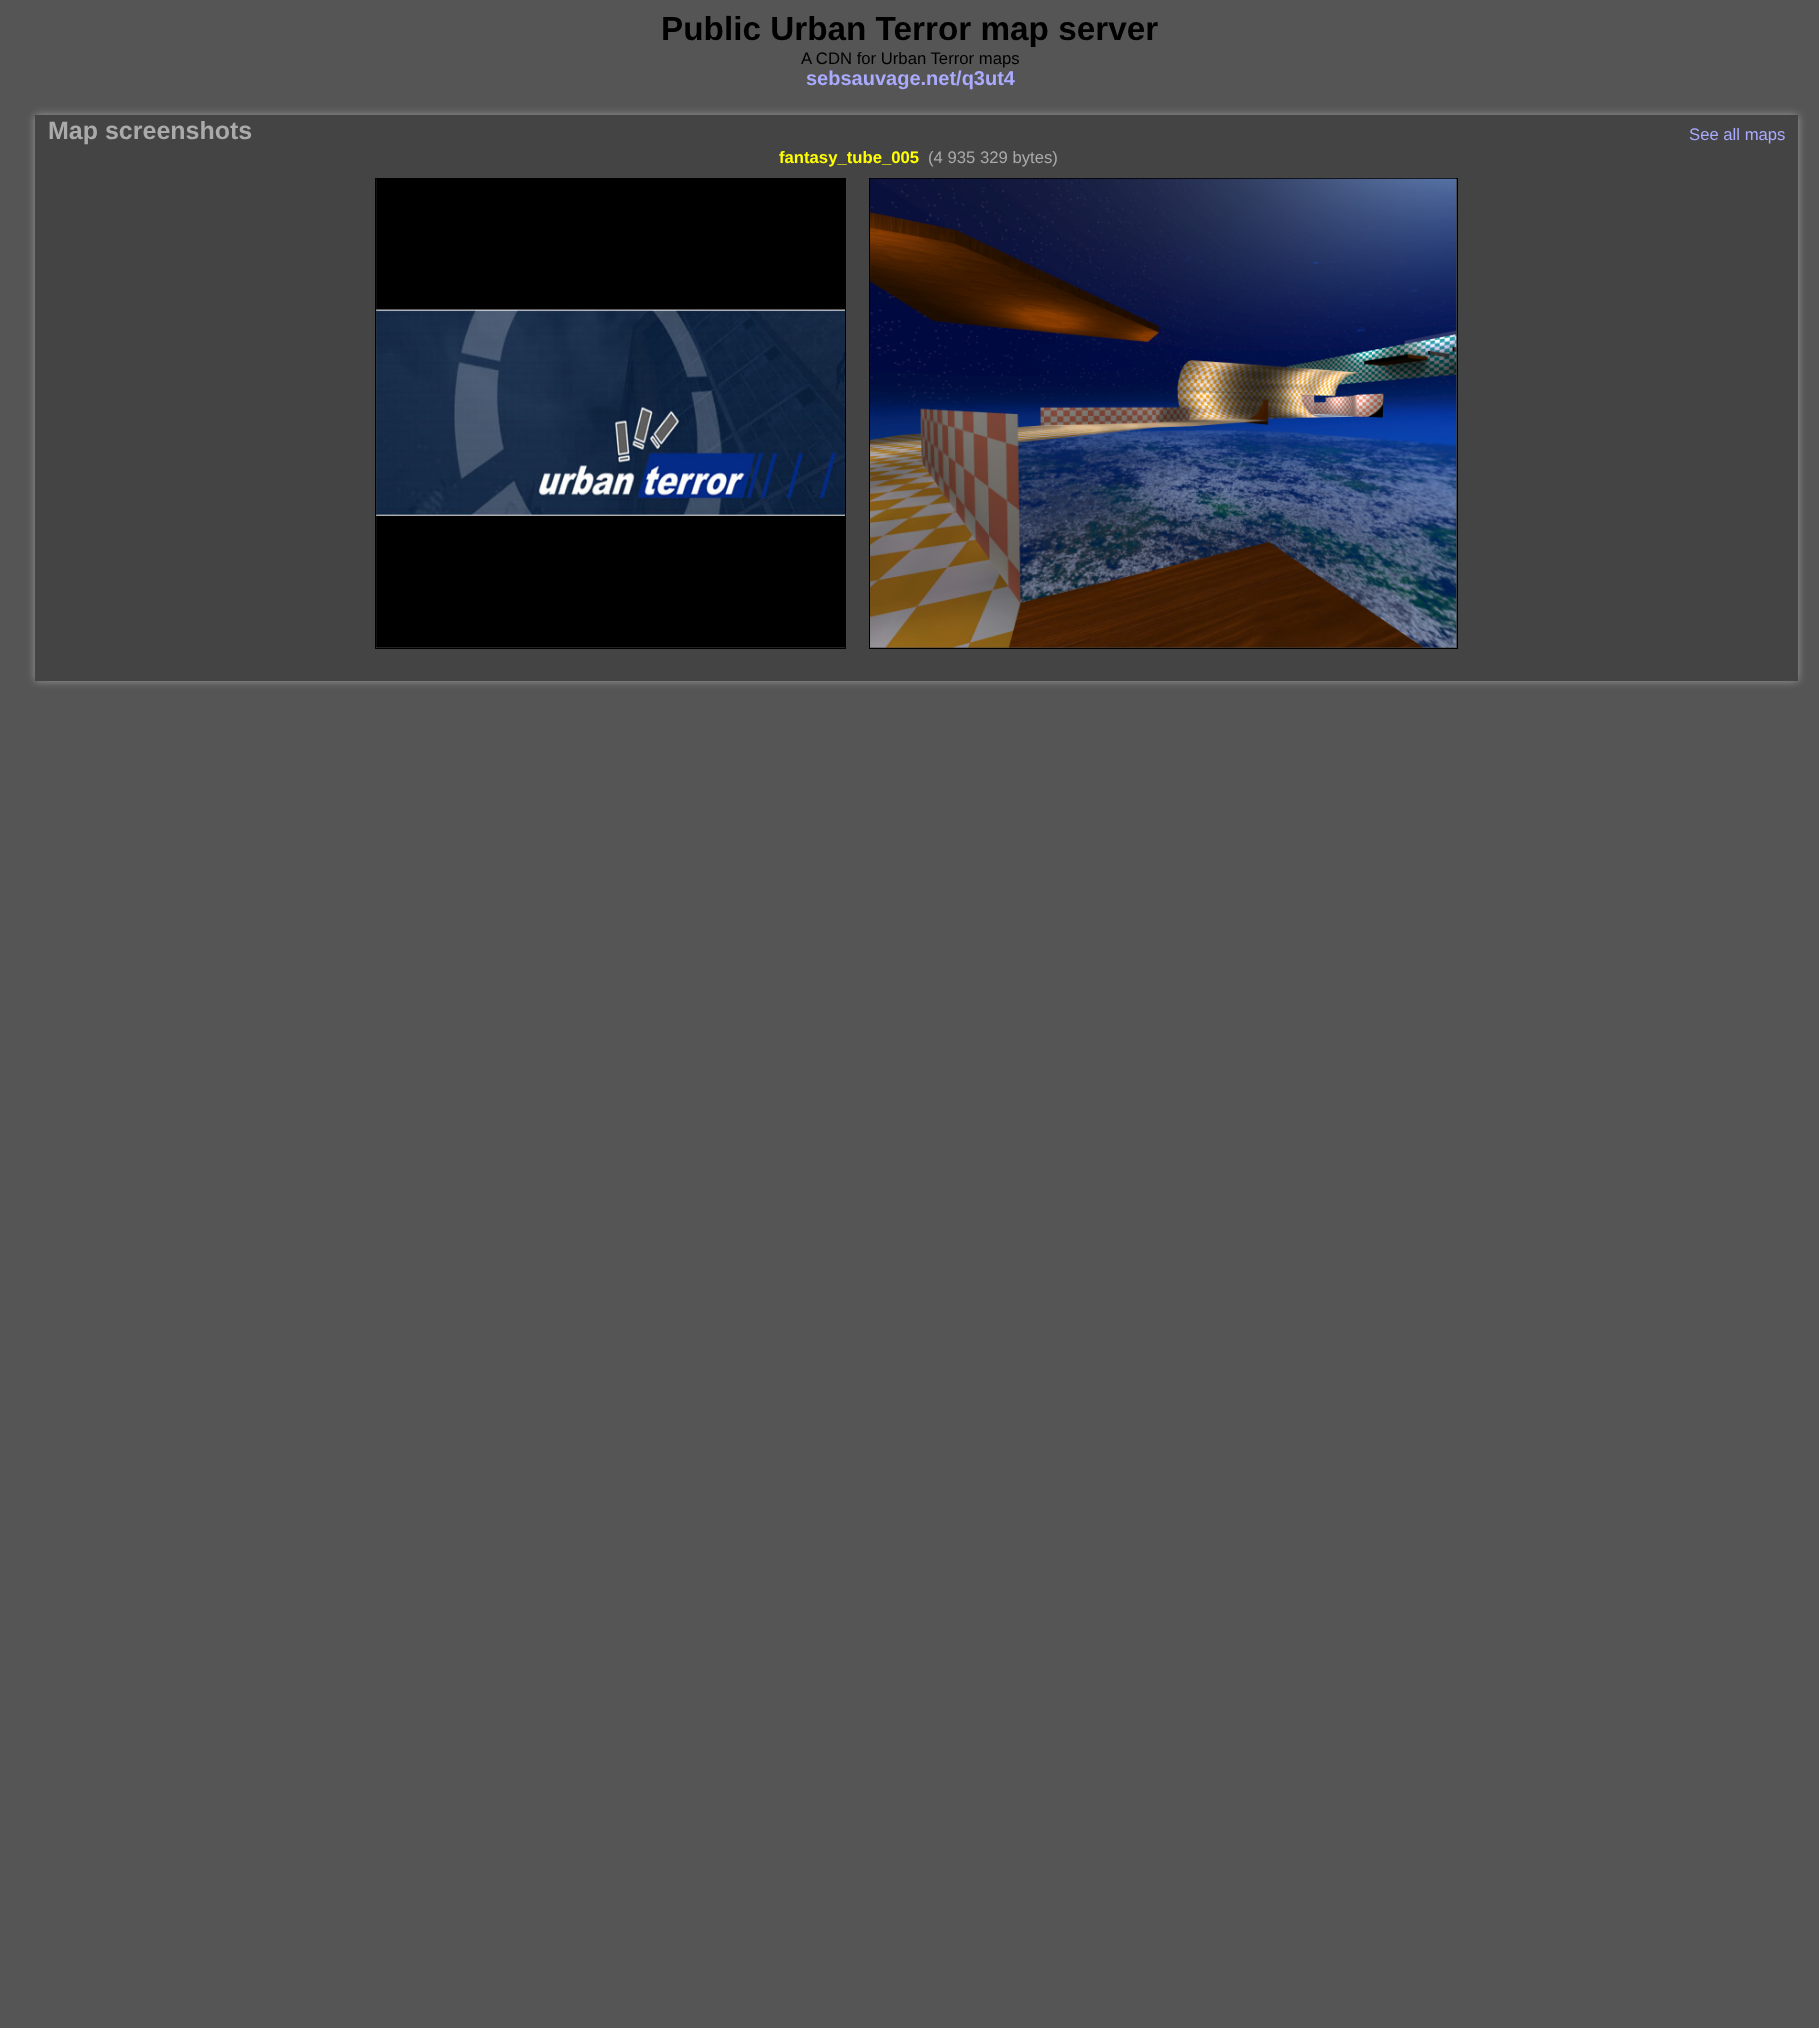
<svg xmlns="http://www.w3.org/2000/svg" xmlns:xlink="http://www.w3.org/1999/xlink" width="1819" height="2028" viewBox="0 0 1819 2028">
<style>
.cls-1{font:bold 33.3px Liberation Sans;fill:#000000}
.cls-2{font:16.7px Liberation Sans;fill:#000000}
.cls-3{font:bold 20px Liberation Sans;fill:#aaaaff}
.cls-4{font:bold 25px Liberation Sans;fill:#aaaaaa}
.cls-5{font:16.7px Liberation Sans;fill:#aaaaff}
.cls-6{font:bold 16.7px Liberation Sans;fill:#ffff00}
.cls-7{font:16.7px Liberation Sans;fill:#aaaaaa}
</style>
<rect width="100%" height="100%" fill="#555555"/>
<rect fill="#999999" filter="blur(4px)" x="35" y="115" width="1763" height="566"/>
<rect fill="#444444" x="35" y="115" width="1763" height="566"/>
<rect fill="none" stroke="#000000" x="375.5" y="178.5" width="470" height="470"/>
<rect fill="none" stroke="#000000" x="869.5" y="178.5" width="588" height="470"/>
<image xlink:href="image0.png" x="376" y="179" width="469" height="469"/>
<image xlink:href="image1.png" x="870" y="178" width="587" height="470"/>
<text class="cls-1" x="661" y="40">Public Urban Terror map server</text>
<text class="cls-2" x="801" y="64">A CDN for Urban Terror maps</text>
<text class="cls-3" x="806" y="85">sebsauvage.net/q3ut4</text>
<text class="cls-4" x="48" y="139">Map screenshots</text>
<text class="cls-5" x="1689" y="140">See all maps</text>
<text class="cls-6" x="779" y="163">fantasy_tube_005</text>
<text class="cls-7" x="928" y="163">(4 935 329 bytes)</text>
</svg>
